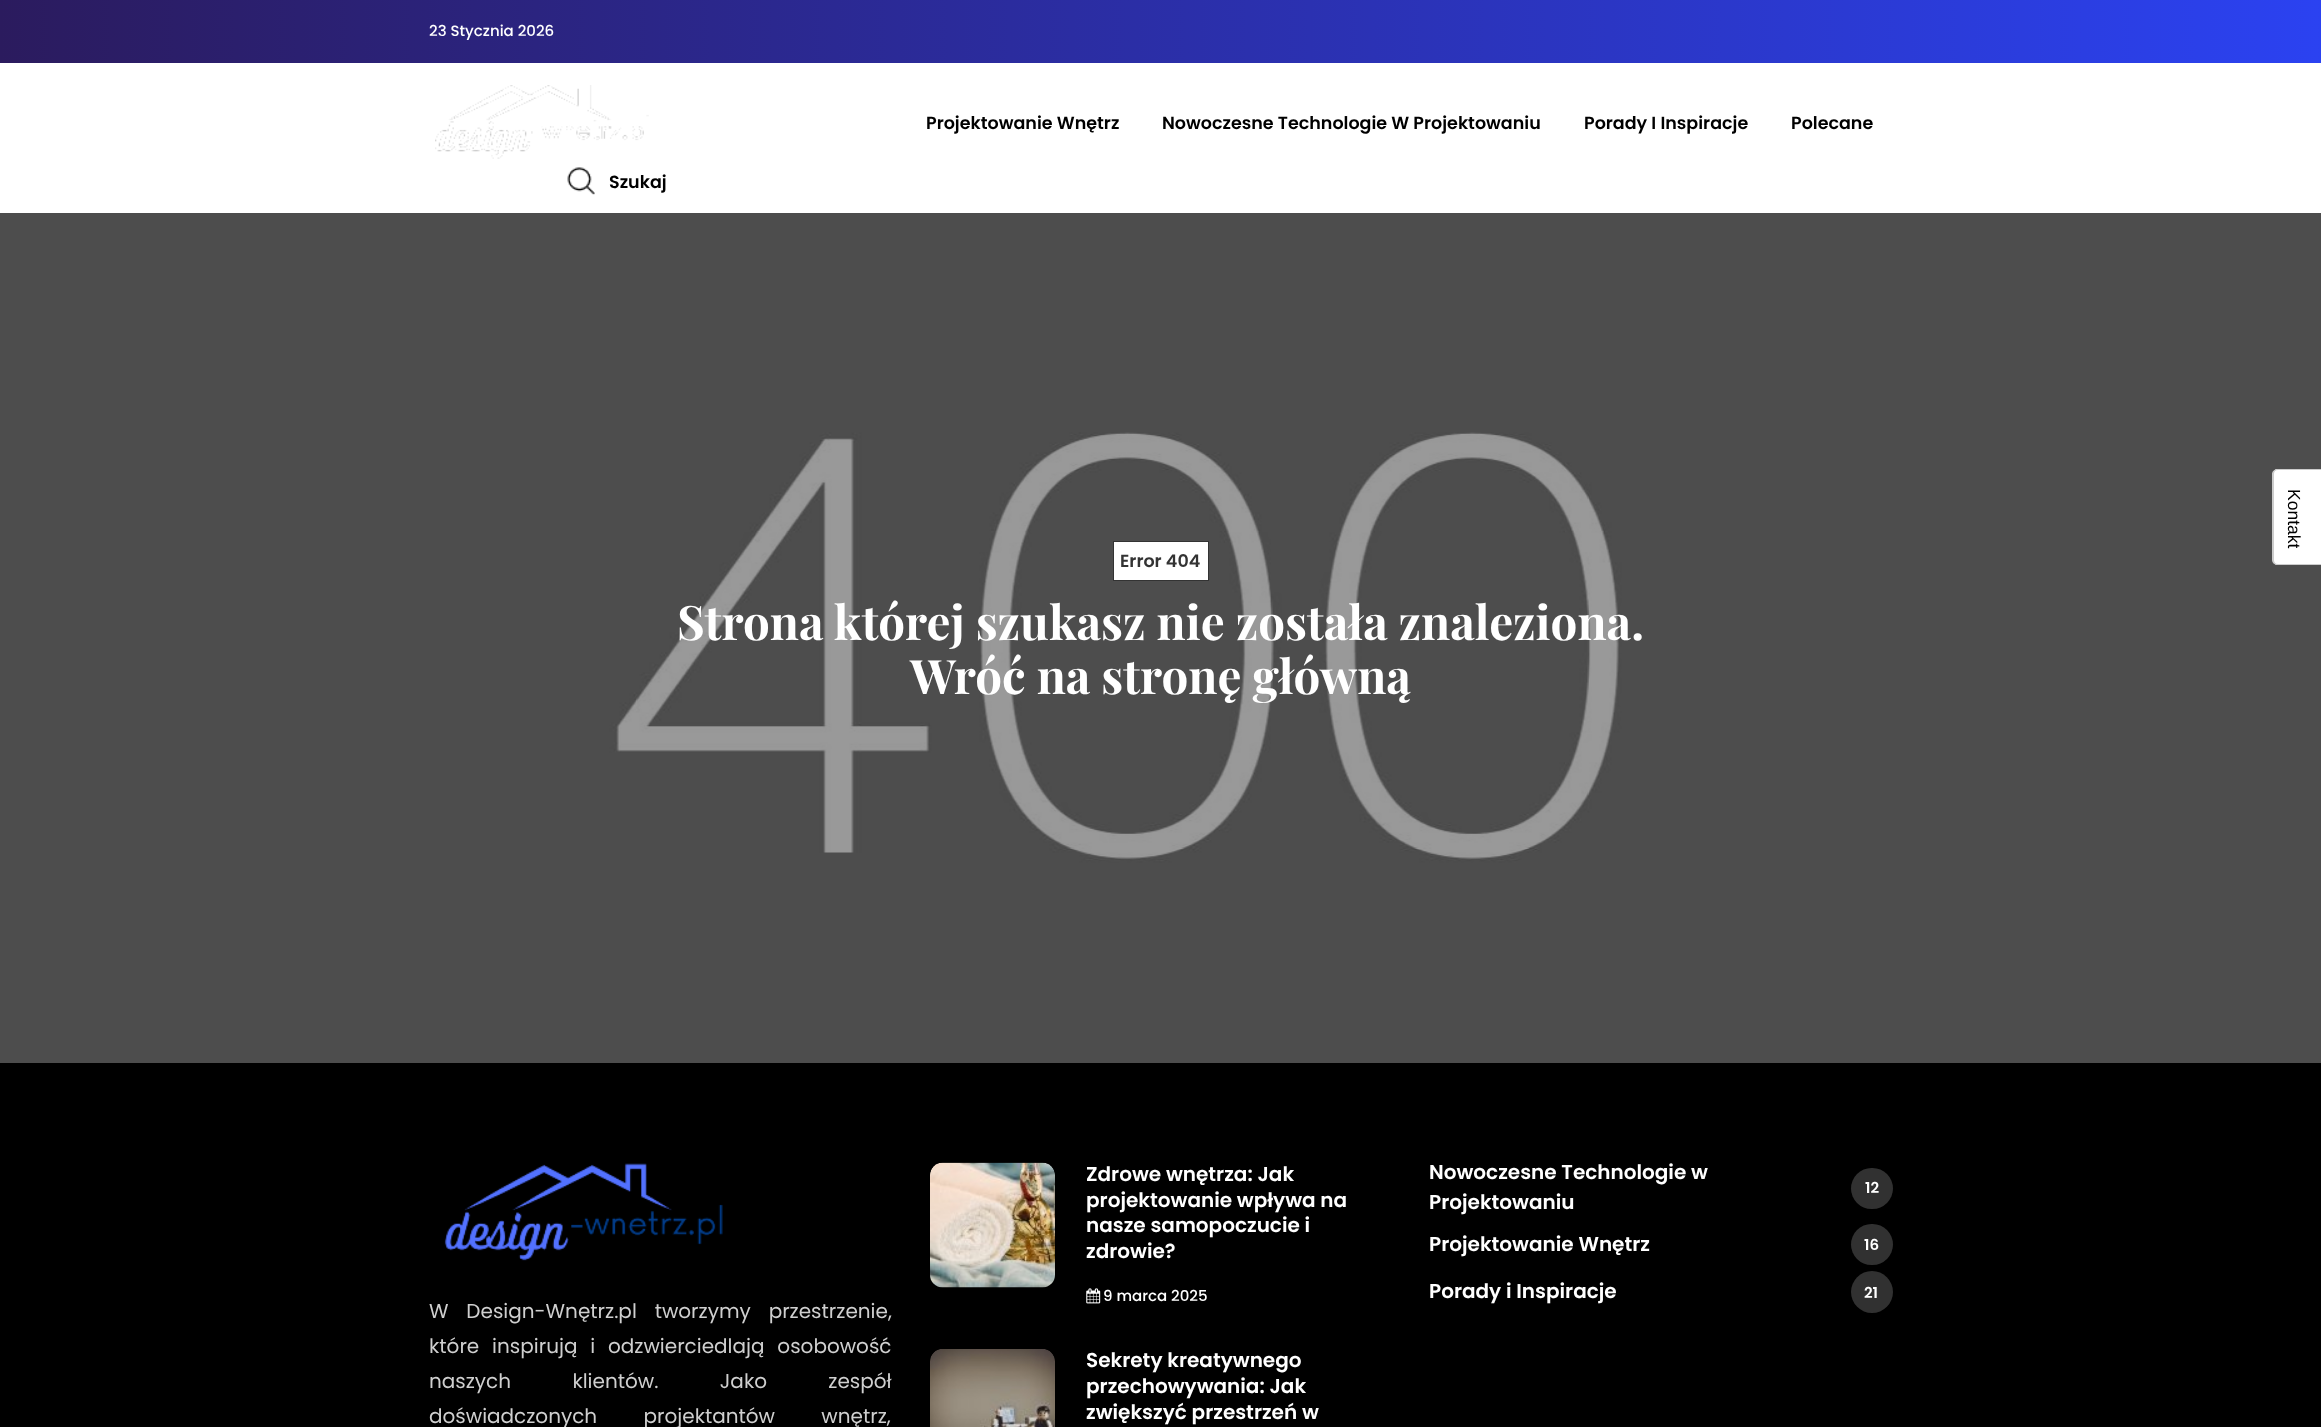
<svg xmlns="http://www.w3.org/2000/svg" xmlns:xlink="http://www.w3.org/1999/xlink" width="2321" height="1427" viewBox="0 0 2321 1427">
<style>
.cls-1{font:500 15px Poppins;fill:#ffffff}
.cls-2{font:600 17.5px Poppins;fill:#000000}
.cls-3{font:17.5px Liberation Sans;fill:#000000}
.cls-4{font:600 17.5px Poppins;fill:#333333}
.cls-5{font:bold 47.5px Playfair Display;fill:#ffffff}
.cls-6{font:20px Poppins;fill:#cfcfcf}
.cls-7{font:600 20px Poppins;fill:#ffffff}
.cls-8{font:600 15px Poppins;fill:#ffffff}
</style>
<defs>
<linearGradient id="g1" gradientUnits="userSpaceOnUse" x1="0" y1="31" x2="2321" y2="31"><stop offset="0" stop-color="#2b1b5e"/><stop offset="1" stop-color="#2b42f1"/></linearGradient>
</defs>
<rect width="100%" height="100%" fill="#ffffff"/>
<rect fill="url(#g1)" x="0" y="0" width="2321" height="63"/>
<image xlink:href="image0.png" x="435" y="85" width="214" height="74"/>
<image xlink:href="image1.png" x="567" y="167" width="28" height="28"/>
<image xlink:href="image2.png" x="0" y="213" width="2321" height="850"/>
<path fill="#ffffff" d="M2278 469H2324V565H2278C2275 565 2273 563 2273 560V474C2273 471 2275 469 2278 469Z"/>
<path fill="#cccccc" fill-rule="evenodd" d="M2278 469H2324V565H2278C2275 565 2272 563 2272 560V474C2272 471 2275 469 2278 469ZM2278 470H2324V564H2278C2275 564 2274 562 2274 560V474C2274 472 2275 470 2278 470Z"/>
<rect fill="#ffffff" stroke="#333333" x="1113.5" y="541.5" width="95" height="39"/>
<rect fill="#000000" x="0" y="1063" width="2321" height="364"/>
<image xlink:href="image3.png" x="444" y="1163" width="279" height="98"/>
<image xlink:href="image4.png" x="930" y="1162" width="125" height="126"/>
<image xlink:href="image5.png" x="1086" y="1288" width="15" height="16"/>
<image xlink:href="image6.png" x="930" y="1349" width="125" height="78"/>
<rect fill="#313131" x="1851" y="1168" width="42" height="41" rx="20.5"/>
<rect fill="#313131" x="1851" y="1224" width="42" height="41" rx="20.5"/>
<circle fill="#313131" cx="1872" cy="1292" r="21"/>
<text class="cls-1" x="429" y="36">23 Stycznia 2026</text>
<text class="cls-2" x="926" y="129">Projektowanie Wnętrz</text>
<text class="cls-2" x="1162" y="129">Nowoczesne Technologie W Projektowaniu</text>
<text class="cls-2" x="1584" y="129">Porady I Inspiracje</text>
<text class="cls-2" x="1791" y="129">Polecane</text>
<text class="cls-2" x="609" y="188">Szukaj</text>
<text class="cls-3" x="2288" y="489" transform="rotate(90 2288 489)">Kontakt</text>
<text class="cls-4" x="1120" y="567">Error 404</text>
<text class="cls-5" x="677" y="640">Strona której szukasz nie została znaleziona.</text>
<text class="cls-5" x="910" y="694">Wróć na stronę główną</text>
<text class="cls-6"><tspan x="429" y="1318" word-spacing="12.5">W Design-Wnętrz.pl tworzymy przestrzenie,</tspan><tspan x="429" y="1353" word-spacing="7.5">które inspirują i odzwierciedlają osobowość</tspan><tspan x="429" y="1388" word-spacing="56">naszych klientów. Jako zespół</tspan><tspan x="429" y="1423" word-spacing="41">doświadczonych projektantów wnętrz,</tspan></text>
<text class="cls-7"><tspan x="1086" y="1181">Zdrowe wnętrza: Jak</tspan><tspan x="1086" y="1207">projektowanie wpływa na</tspan><tspan x="1086" y="1232">nasze samopoczucie i</tspan><tspan x="1086" y="1258">zdrowie?</tspan></text>
<text class="cls-1" x="1103" y="1301">9 marca 2025</text>
<text class="cls-7"><tspan x="1086" y="1367">Sekrety kreatywnego</tspan><tspan x="1086" y="1393">przechowywania: Jak</tspan><tspan x="1086" y="1419">zwiększyć przestrzeń w</tspan></text>
<text class="cls-7" x="1429" y="1179">Nowoczesne Technologie w</text>
<text class="cls-8" x="1865" y="1193">12</text>
<text class="cls-7" x="1429" y="1209">Projektowaniu</text>
<text class="cls-7" x="1429" y="1251">Projektowanie Wnętrz</text>
<text class="cls-8" x="1864" y="1250">16</text>
<text class="cls-7" x="1429" y="1298">Porady i Inspiracje</text>
<text class="cls-8" x="1864" y="1298">21</text>
</svg>
